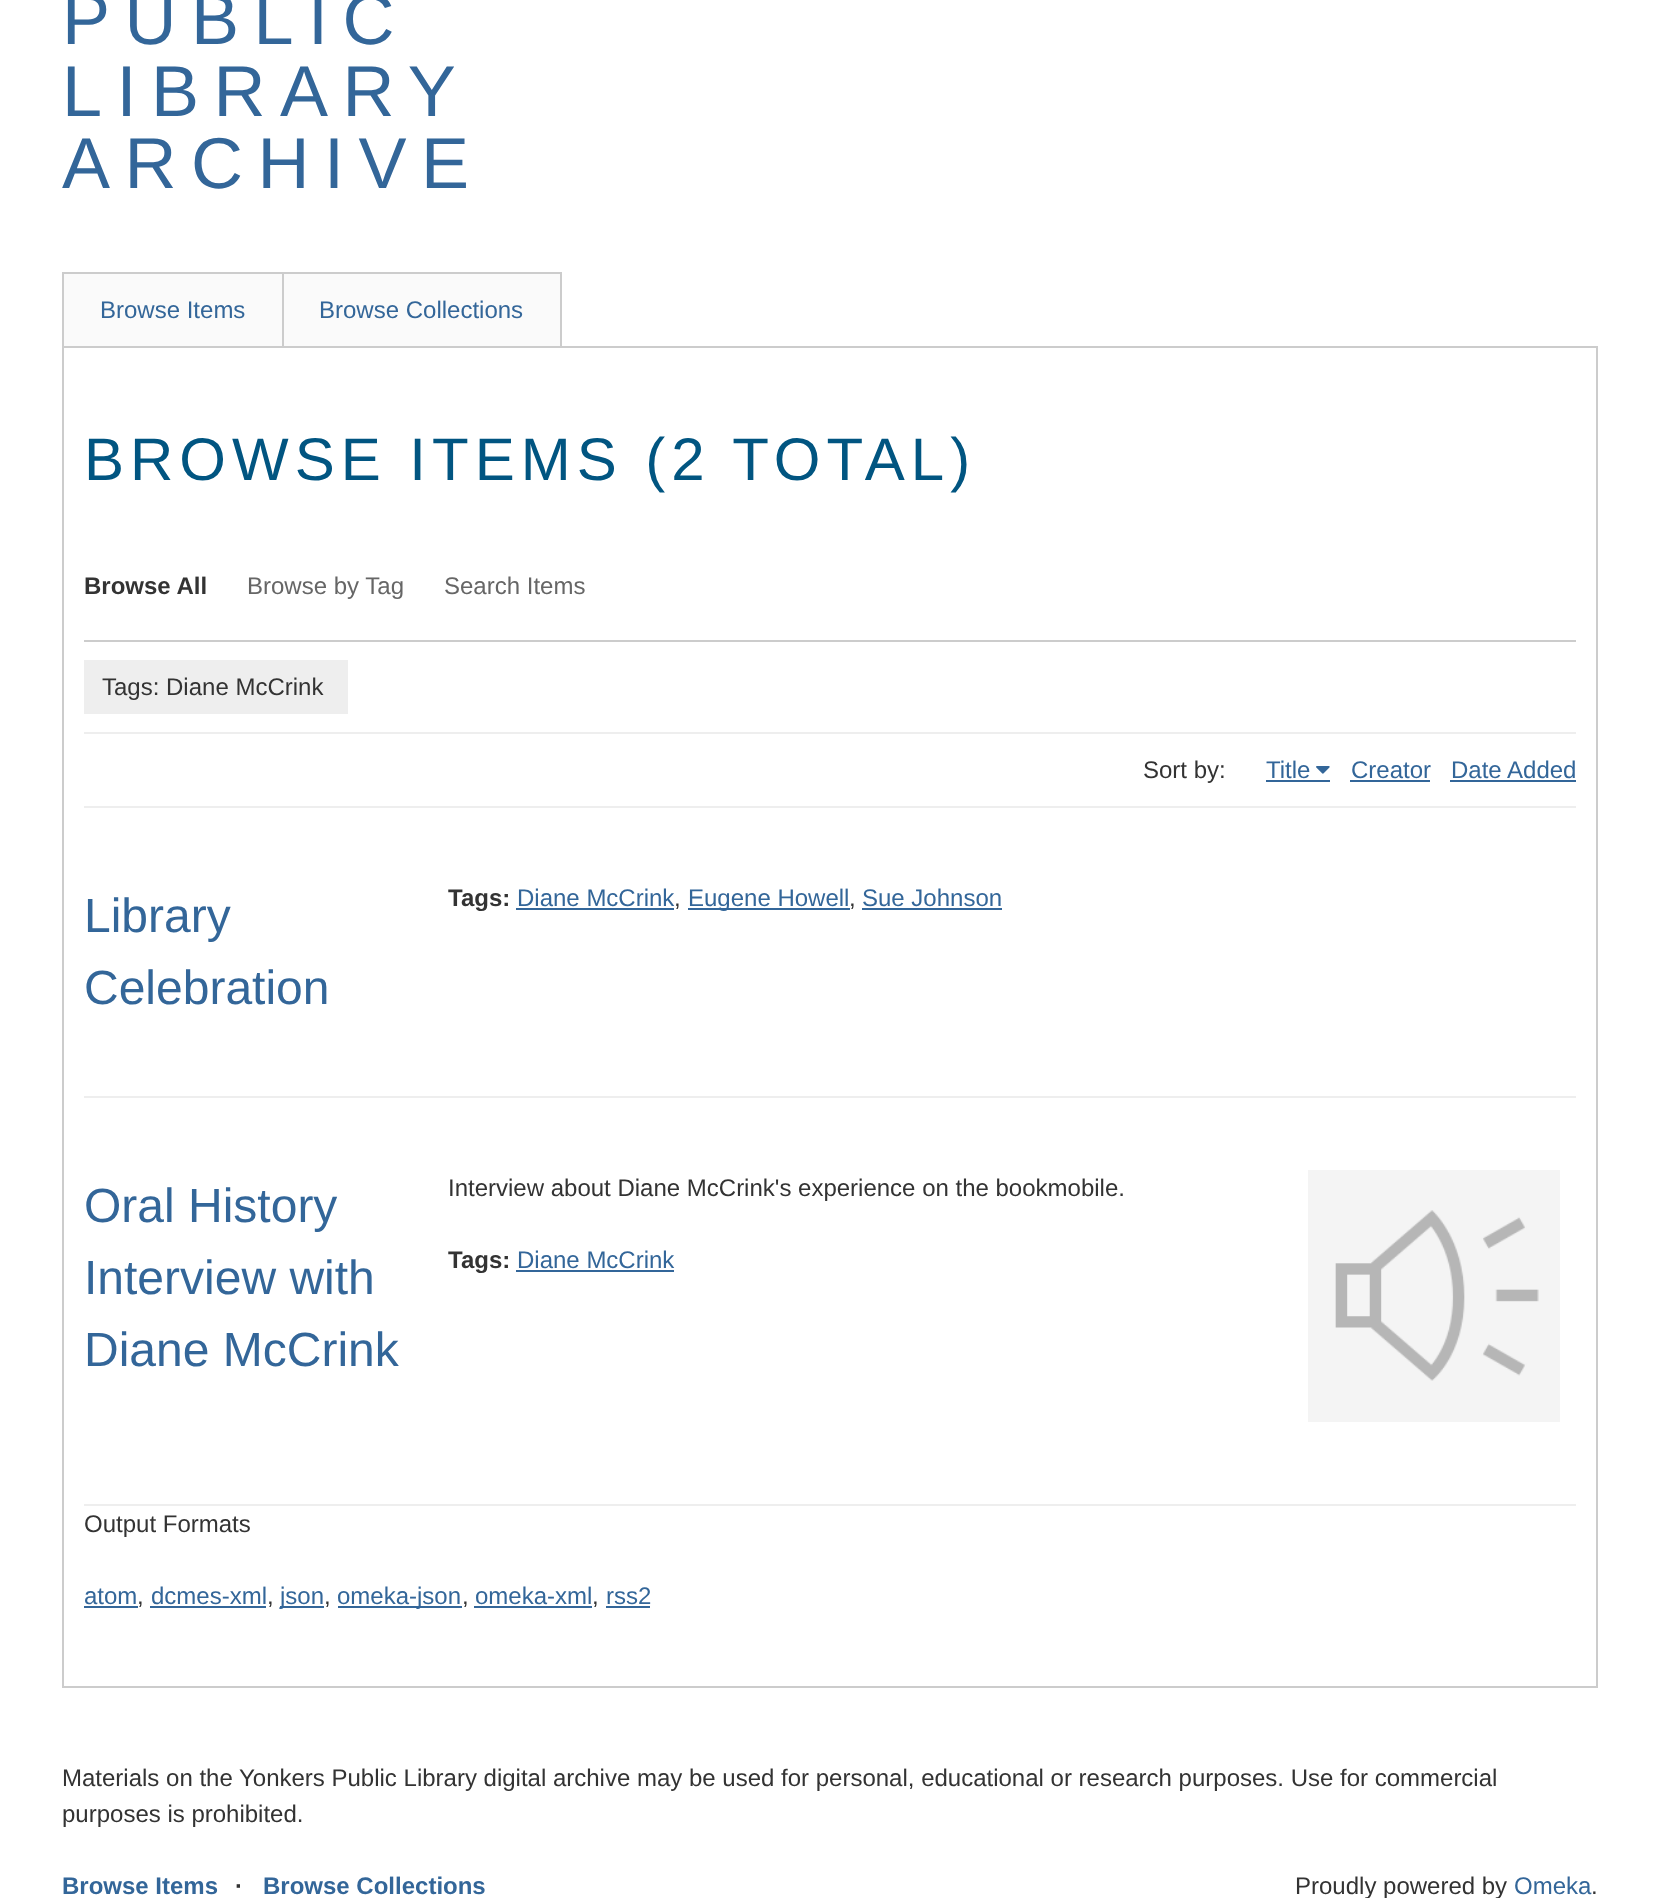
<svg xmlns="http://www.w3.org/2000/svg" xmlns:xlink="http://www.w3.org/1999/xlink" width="1660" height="1898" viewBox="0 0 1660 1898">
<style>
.cls-1{font:72px Liberation Sans;letter-spacing:14.5px;fill:#336699}
.cls-2{font:24px Liberation Sans;fill:#336699}
.cls-3{font:60px Liberation Sans;letter-spacing:6px;fill:#015581}
.cls-4{font:bold 24px Liberation Sans;fill:#333333}
.cls-5{font:24px Liberation Sans;fill:#666666}
.cls-6{font:24px Liberation Sans;fill:#333333}
.cls-7{font:48px Liberation Sans;fill:#336699}
.cls-8{font:bold 24px Liberation Sans;fill:#336699}
</style>
<rect width="100%" height="100%" fill="#ffffff"/>
<rect fill="none" stroke="#cccccc" stroke-width="2" x="63" y="347" width="1534" height="1340"/>
<rect fill="#fafafa" stroke="#cccccc" stroke-width="2" x="63" y="273" width="220" height="74"/>
<rect fill="#fafafa" stroke="#cccccc" stroke-width="2" x="283" y="273" width="278" height="74"/>
<rect fill="#cccccc" x="84" y="640" width="1492" height="2"/>
<rect fill="#eeeeee" x="84" y="732" width="1492" height="2"/>
<rect fill="#eeeeee" x="84" y="660" width="264" height="54"/>
<rect fill="#336699" x="1266" y="780" width="64" height="2"/>
<image xlink:href="image0.png" x="1316" y="766" width="14" height="8"/>
<rect fill="#336699" x="1350" y="780" width="80" height="2"/>
<rect fill="#336699" x="1450" y="780" width="126" height="2"/>
<rect fill="#eeeeee" x="84" y="806" width="1492" height="2"/>
<rect fill="#eeeeee" x="84" y="1096" width="1492" height="2"/>
<rect fill="#336699" x="516" y="908" width="158" height="2"/>
<rect fill="#336699" x="688" y="908" width="162" height="2"/>
<rect fill="#336699" x="862" y="908" width="140" height="2"/>
<rect fill="#eeeeee" x="84" y="1504" width="1492" height="2"/>
<image xlink:href="image1.png" x="1308" y="1170" width="252" height="252"/>
<rect fill="#336699" x="516" y="1270" width="158" height="2"/>
<rect fill="#336699" x="84" y="1606" width="54" height="2"/>
<rect fill="#336699" x="150" y="1606" width="116" height="2"/>
<rect fill="#336699" x="280" y="1606" width="44" height="2"/>
<rect fill="#336699" x="338" y="1606" width="124" height="2"/>
<rect fill="#336699" x="474" y="1606" width="118" height="2"/>
<rect fill="#336699" x="606" y="1606" width="44" height="2"/>
<text class="cls-1"><tspan x="62" y="44">PUBLIC</tspan><tspan x="62" y="116">LIBRARY</tspan><tspan x="62" y="188">ARCHIVE</tspan></text>
<text class="cls-2" x="100" y="318">Browse Items</text>
<text class="cls-2" x="319" y="318">Browse Collections</text>
<text class="cls-3" x="84" y="480">BROWSE ITEMS (2 TOTAL)</text>
<text class="cls-4" x="84" y="594">Browse All</text>
<text class="cls-5" x="247" y="594">Browse by Tag</text>
<text class="cls-5" x="444" y="594">Search Items</text>
<text class="cls-6" x="102" y="695">Tags: Diane McCrink</text>
<text class="cls-6" x="1143" y="778">Sort by:</text>
<text class="cls-2" x="1266" y="778">Title</text>
<text class="cls-2" x="1351" y="778">Creator</text>
<text class="cls-2" x="1451" y="778">Date Added</text>
<text class="cls-7"><tspan x="84" y="932">Library</tspan><tspan x="84" y="1004">Celebration</tspan></text>
<text class="cls-4" x="448" y="906">Tags:</text>
<text class="cls-2" x="517" y="906">Diane McCrink</text>
<text class="cls-6" x="674" y="906">,</text>
<text class="cls-2" x="688" y="906">Eugene Howell</text>
<text class="cls-6" x="849" y="906">,</text>
<text class="cls-2" x="862" y="906">Sue Johnson</text>
<text class="cls-7"><tspan x="84" y="1222">Oral History</tspan><tspan x="84" y="1294">Interview with</tspan><tspan x="84" y="1366">Diane McCrink</tspan></text>
<text class="cls-6" x="448" y="1196">Interview about Diane McCrink's experience on the bookmobile.</text>
<text class="cls-4" x="448" y="1268">Tags:</text>
<text class="cls-2" x="517" y="1268">Diane McCrink</text>
<text class="cls-6" x="84" y="1532">Output Formats</text>
<text class="cls-2" x="84" y="1604">atom</text>
<text class="cls-6" x="137" y="1604">,</text>
<text class="cls-2" x="151" y="1604">dcmes-xml</text>
<text class="cls-6" x="267" y="1604">,</text>
<text class="cls-2" x="280" y="1604">json</text>
<text class="cls-6" x="324" y="1604">,</text>
<text class="cls-2" x="337" y="1604">omeka-json</text>
<text class="cls-6" x="462" y="1604">,</text>
<text class="cls-2" x="475" y="1604">omeka-xml</text>
<text class="cls-6" x="592" y="1604">,</text>
<text class="cls-2" x="606" y="1604">rss2</text>
<text class="cls-6"><tspan x="62" y="1786">Materials on the Yonkers Public Library digital archive may be used for personal, educational or research purposes. Use for commercial</tspan><tspan x="62" y="1822">purposes is prohibited.</tspan></text>
<text class="cls-8" x="62" y="1894">Browse Items</text>
<text class="cls-4" x="235" y="1894">·</text>
<text class="cls-8" x="263" y="1894">Browse Collections</text>
<text class="cls-6" x="1295" y="1894">Proudly powered by</text>
<text class="cls-2" x="1514" y="1894">Omeka</text>
<text class="cls-6" x="1591" y="1894">.</text>
</svg>
